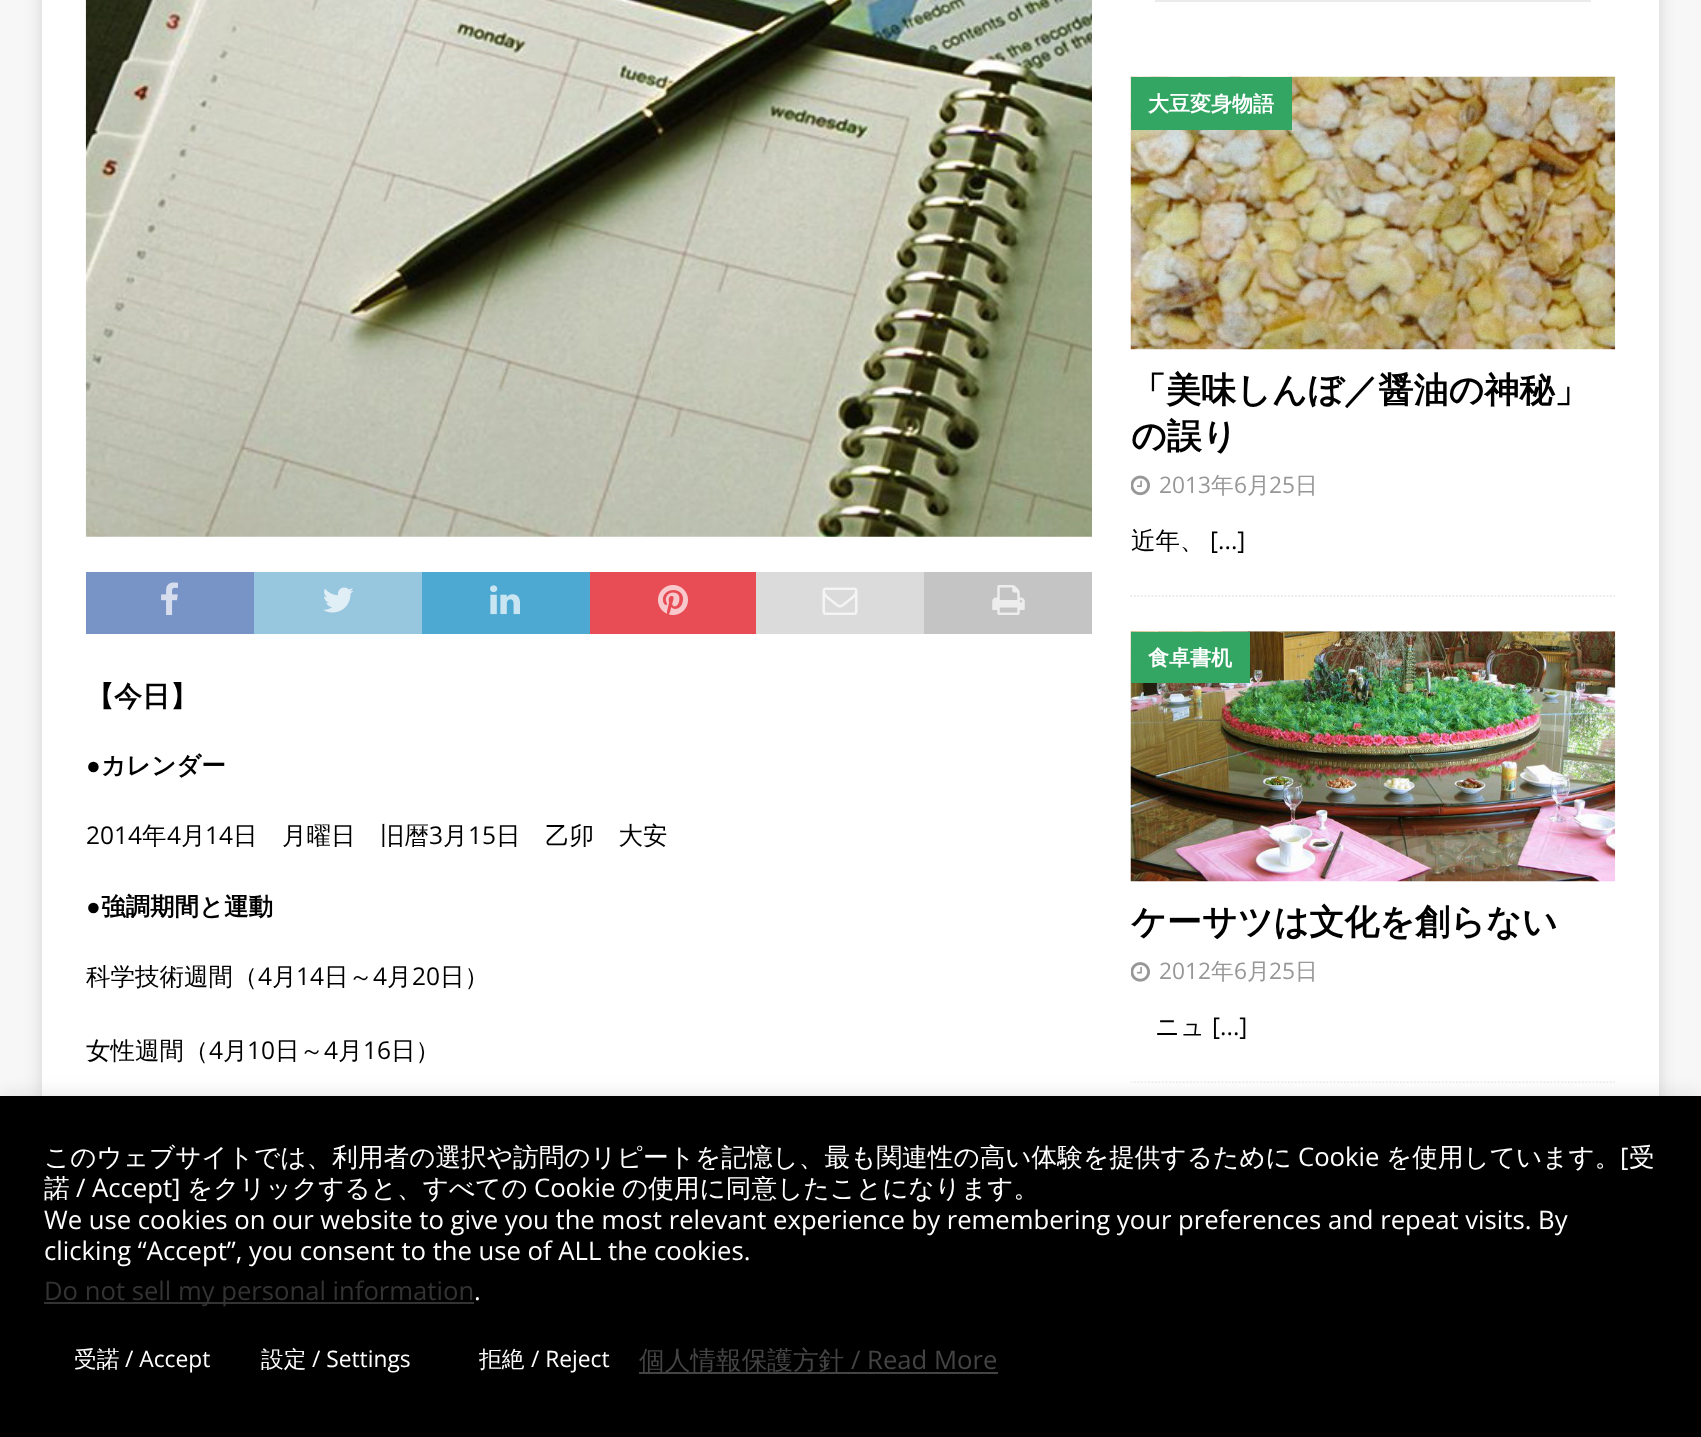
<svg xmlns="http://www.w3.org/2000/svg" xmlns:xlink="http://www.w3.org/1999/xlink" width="1701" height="1437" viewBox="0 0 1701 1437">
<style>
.cls-1{font:bold 28px WenQuanYi Zen Hei;fill:#000000}
.cls-2{font:bold 24.5px Liberation Sans;fill:#000000}
.cls-3{font:bold 24.5px WenQuanYi Zen Hei;fill:#000000}
.cls-4{font:24.5px Open Sans;fill:#000000}
.cls-5{font:500 24.5px WenQuanYi Zen Hei;fill:#000000}
.cls-6{font:bold 21px WenQuanYi Zen Hei;fill:#ffffff}
.cls-7{font:bold 35px WenQuanYi Zen Hei;fill:#000000}
.cls-8{font:22.75px Open Sans;fill:#979797}
.cls-9{font:500 22.75px WenQuanYi Zen Hei;fill:#979797}
.cls-10{font:500 25.67px WenQuanYi Zen Hei;fill:#ffffff}
.cls-11{font:25.67px Open Sans;fill:#ffffff}
.cls-12{font:25.67px Open Sans;fill:#333333}
.cls-13{font:500 22.75px WenQuanYi Zen Hei;fill:#ffffff}
.cls-14{font:22.75px Open Sans;fill:#ffffff}
.cls-15{font:500 25.67px WenQuanYi Zen Hei;fill:#444444}
.cls-16{font:25.67px Open Sans;fill:#444444}
</style>
<defs>
<clipPath id="clip1"><rect x="1131" y="77" width="484" height="1006"/></clipPath>
</defs>
<rect width="100%" height="100%" fill="#f7f7f7"/>
<rect fill="#323232" fill-opacity="0.17" filter="blur(9px)" x="42" y="-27" width="1617" height="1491"/>
<rect fill="#ffffff" x="42" y="0" width="1617" height="1096"/>
<image xlink:href="image0.png" x="85" y="0" width="1007" height="537"/>
<rect fill="#7893c6" x="86" y="572" width="168" height="62"/>
<image xlink:href="image1.png" x="161" y="582" width="17" height="33"/>
<rect fill="#97c6df" x="254" y="572" width="168" height="62"/>
<image xlink:href="image2.png" x="323" y="587" width="31" height="26"/>
<rect fill="#4da9d2" x="422" y="572" width="168" height="62"/>
<image xlink:href="image3.png" x="490" y="585" width="30" height="30"/>
<rect fill="#e84d56" x="590" y="572" width="166" height="62"/>
<image xlink:href="image4.png" x="658" y="585" width="30" height="30"/>
<rect fill="#dbdbdb" x="756" y="572" width="168" height="62"/>
<image xlink:href="image5.png" x="822" y="587" width="36" height="28"/>
<rect fill="#c4c4c4" x="924" y="572" width="168" height="62"/>
<image xlink:href="image6.png" x="992" y="585" width="33" height="30"/>
<rect fill="#ebebeb" x="1155" y="0" width="436" height="2"/>
<path fill="none" stroke="#ebebeb" stroke-width="1.8" stroke-dasharray="1.75 1.75" d="M1130.5 596H1615"/>
<image xlink:href="image7.png" x="1130" y="76" width="486" height="274"/>
<rect fill="#33a664" x="1131" y="77" width="161" height="53"/>
<image xlink:href="image8.png" x="1131" y="475" width="19" height="21"/>
<g clip-path="url(#clip1)">
<path fill="none" stroke="#ebebeb" stroke-width="1.8" stroke-dasharray="1.75 1.75" d="M1130.5 1082.5H1615"/>
</g>
<image xlink:href="image9.png" x="1130" y="631" width="486" height="251"/>
<rect fill="#33a664" x="1131" y="632" width="119" height="51"/>
<image xlink:href="image10.png" x="1131" y="962" width="19" height="20"/>
<rect fill="#acabab" fill-opacity="0.3" filter="blur(9px)" x="0" y="1094" width="1701" height="343"/>
<rect fill="#000000" x="0" y="1096" width="1701" height="341"/>
<rect fill="#333333" x="44" y="1302" width="430" height="2"/>
<rect fill="#444444" x="639" y="1372" width="359" height="2"/>
<text class="cls-1" x="86" y="706">【今日】</text>
<text class="cls-2" x="86" y="774">●</text>
<text class="cls-3" x="101" y="774">カレンダー</text>
<text class="cls-4" x="86" y="844">2014</text>
<text class="cls-5" x="142" y="844">年</text>
<text class="cls-4" x="167" y="844">4</text>
<text class="cls-5" x="181" y="844">月</text>
<text class="cls-4" x="205" y="844">14</text>
<text class="cls-5" x="233" y="844">日　月曜日　旧暦</text>
<text class="cls-4" x="429" y="844">3</text>
<text class="cls-5" x="443" y="844">月</text>
<text class="cls-4" x="468" y="844">15</text>
<text class="cls-5" x="496" y="844">日　乙卯　大安</text>
<text class="cls-2" x="86" y="915">●</text>
<text class="cls-3" x="101" y="915">強調期間と運動</text>
<text class="cls-5" x="86" y="985">科学技術週間（</text>
<text class="cls-4" x="258" y="985">4</text>
<text class="cls-5" x="272" y="985">月</text>
<text class="cls-4" x="296" y="985">14</text>
<text class="cls-5" x="324" y="985">日～</text>
<text class="cls-4" x="373" y="985">4</text>
<text class="cls-5" x="387" y="985">月</text>
<text class="cls-4" x="412" y="985">20</text>
<text class="cls-5" x="440" y="985">日）</text>
<text class="cls-5" x="86" y="1059">女性週間（</text>
<text class="cls-4" x="209" y="1059">4</text>
<text class="cls-5" x="223" y="1059">月</text>
<text class="cls-4" x="247" y="1059">10</text>
<text class="cls-5" x="275" y="1059">日～</text>
<text class="cls-4" x="324" y="1059">4</text>
<text class="cls-5" x="338" y="1059">月</text>
<text class="cls-4" x="363" y="1059">16</text>
<text class="cls-5" x="391" y="1059">日）</text>
<text class="cls-6" x="1148" y="111">大豆変身物語</text>
<text class="cls-7"><tspan x="1131" y="402">「美味しんぼ／醤油の神秘」</tspan><tspan x="1131" y="448">の誤り</tspan></text>
<text class="cls-8" x="1159" y="493">2013</text>
<text class="cls-9" x="1211" y="493">年</text>
<text class="cls-8" x="1234" y="493">6</text>
<text class="cls-9" x="1247" y="493">月</text>
<text class="cls-8" x="1269" y="493">25</text>
<text class="cls-9" x="1295" y="493">日</text>
<text class="cls-5" x="1131" y="549">近年、</text>
<text class="cls-4" x="1210" y="549">[...]</text>
<text class="cls-6" x="1148" y="665">食卓書机</text>
<text class="cls-7" x="1131" y="934">ケーサツは文化を創らない</text>
<text class="cls-8" x="1159" y="979">2012</text>
<text class="cls-9" x="1211" y="979">年</text>
<text class="cls-8" x="1234" y="979">6</text>
<text class="cls-9" x="1247" y="979">月</text>
<text class="cls-8" x="1269" y="979">25</text>
<text class="cls-9" x="1295" y="979">日</text>
<text class="cls-5" x="1155" y="1035">ニュ</text>
<text class="cls-4" x="1212" y="1035">[...]</text>
<text class="cls-10" x="44" y="1166">このウェブサイトでは、利用者の選択や訪問のリピートを記憶し、最も関連性の高い体験を提供するために</text>
<text class="cls-11" x="1298" y="1166">Cookie</text>
<text class="cls-10" x="1386" y="1166">を使用しています。</text>
<text class="cls-11" x="1620" y="1166">[</text>
<text class="cls-10" x="1629" y="1166">受</text>
<text class="cls-10" x="44" y="1197">諾</text>
<text class="cls-11" x="76" y="1197">/ Accept]</text>
<text class="cls-10" x="187" y="1197">をクリックすると、すべての</text>
<text class="cls-11" x="534" y="1197">Cookie</text>
<text class="cls-10" x="622" y="1197">の使用に同意したことになります。</text>
<text class="cls-11"><tspan x="44" y="1229">We use cookies on our website to give you the most relevant experience by remembering your preferences and repeat visits. By</tspan><tspan x="44" y="1260">clicking “Accept”, you consent to the use of ALL the cookies.</tspan></text>
<text class="cls-12" x="44" y="1300">Do not sell my personal information</text>
<text class="cls-11" x="474" y="1300">.</text>
<text class="cls-13" x="74" y="1367">受諾</text>
<text class="cls-14" x="125" y="1367">/ Accept</text>
<text class="cls-13" x="261" y="1367">設定</text>
<text class="cls-14" x="312" y="1367">/ Settings</text>
<text class="cls-13" x="479" y="1367">拒絶</text>
<text class="cls-14" x="531" y="1367">/ Reject</text>
<text class="cls-15" x="639" y="1369">個人情報保護方針</text>
<text class="cls-16" x="851" y="1369">/ Read More</text>
</svg>
